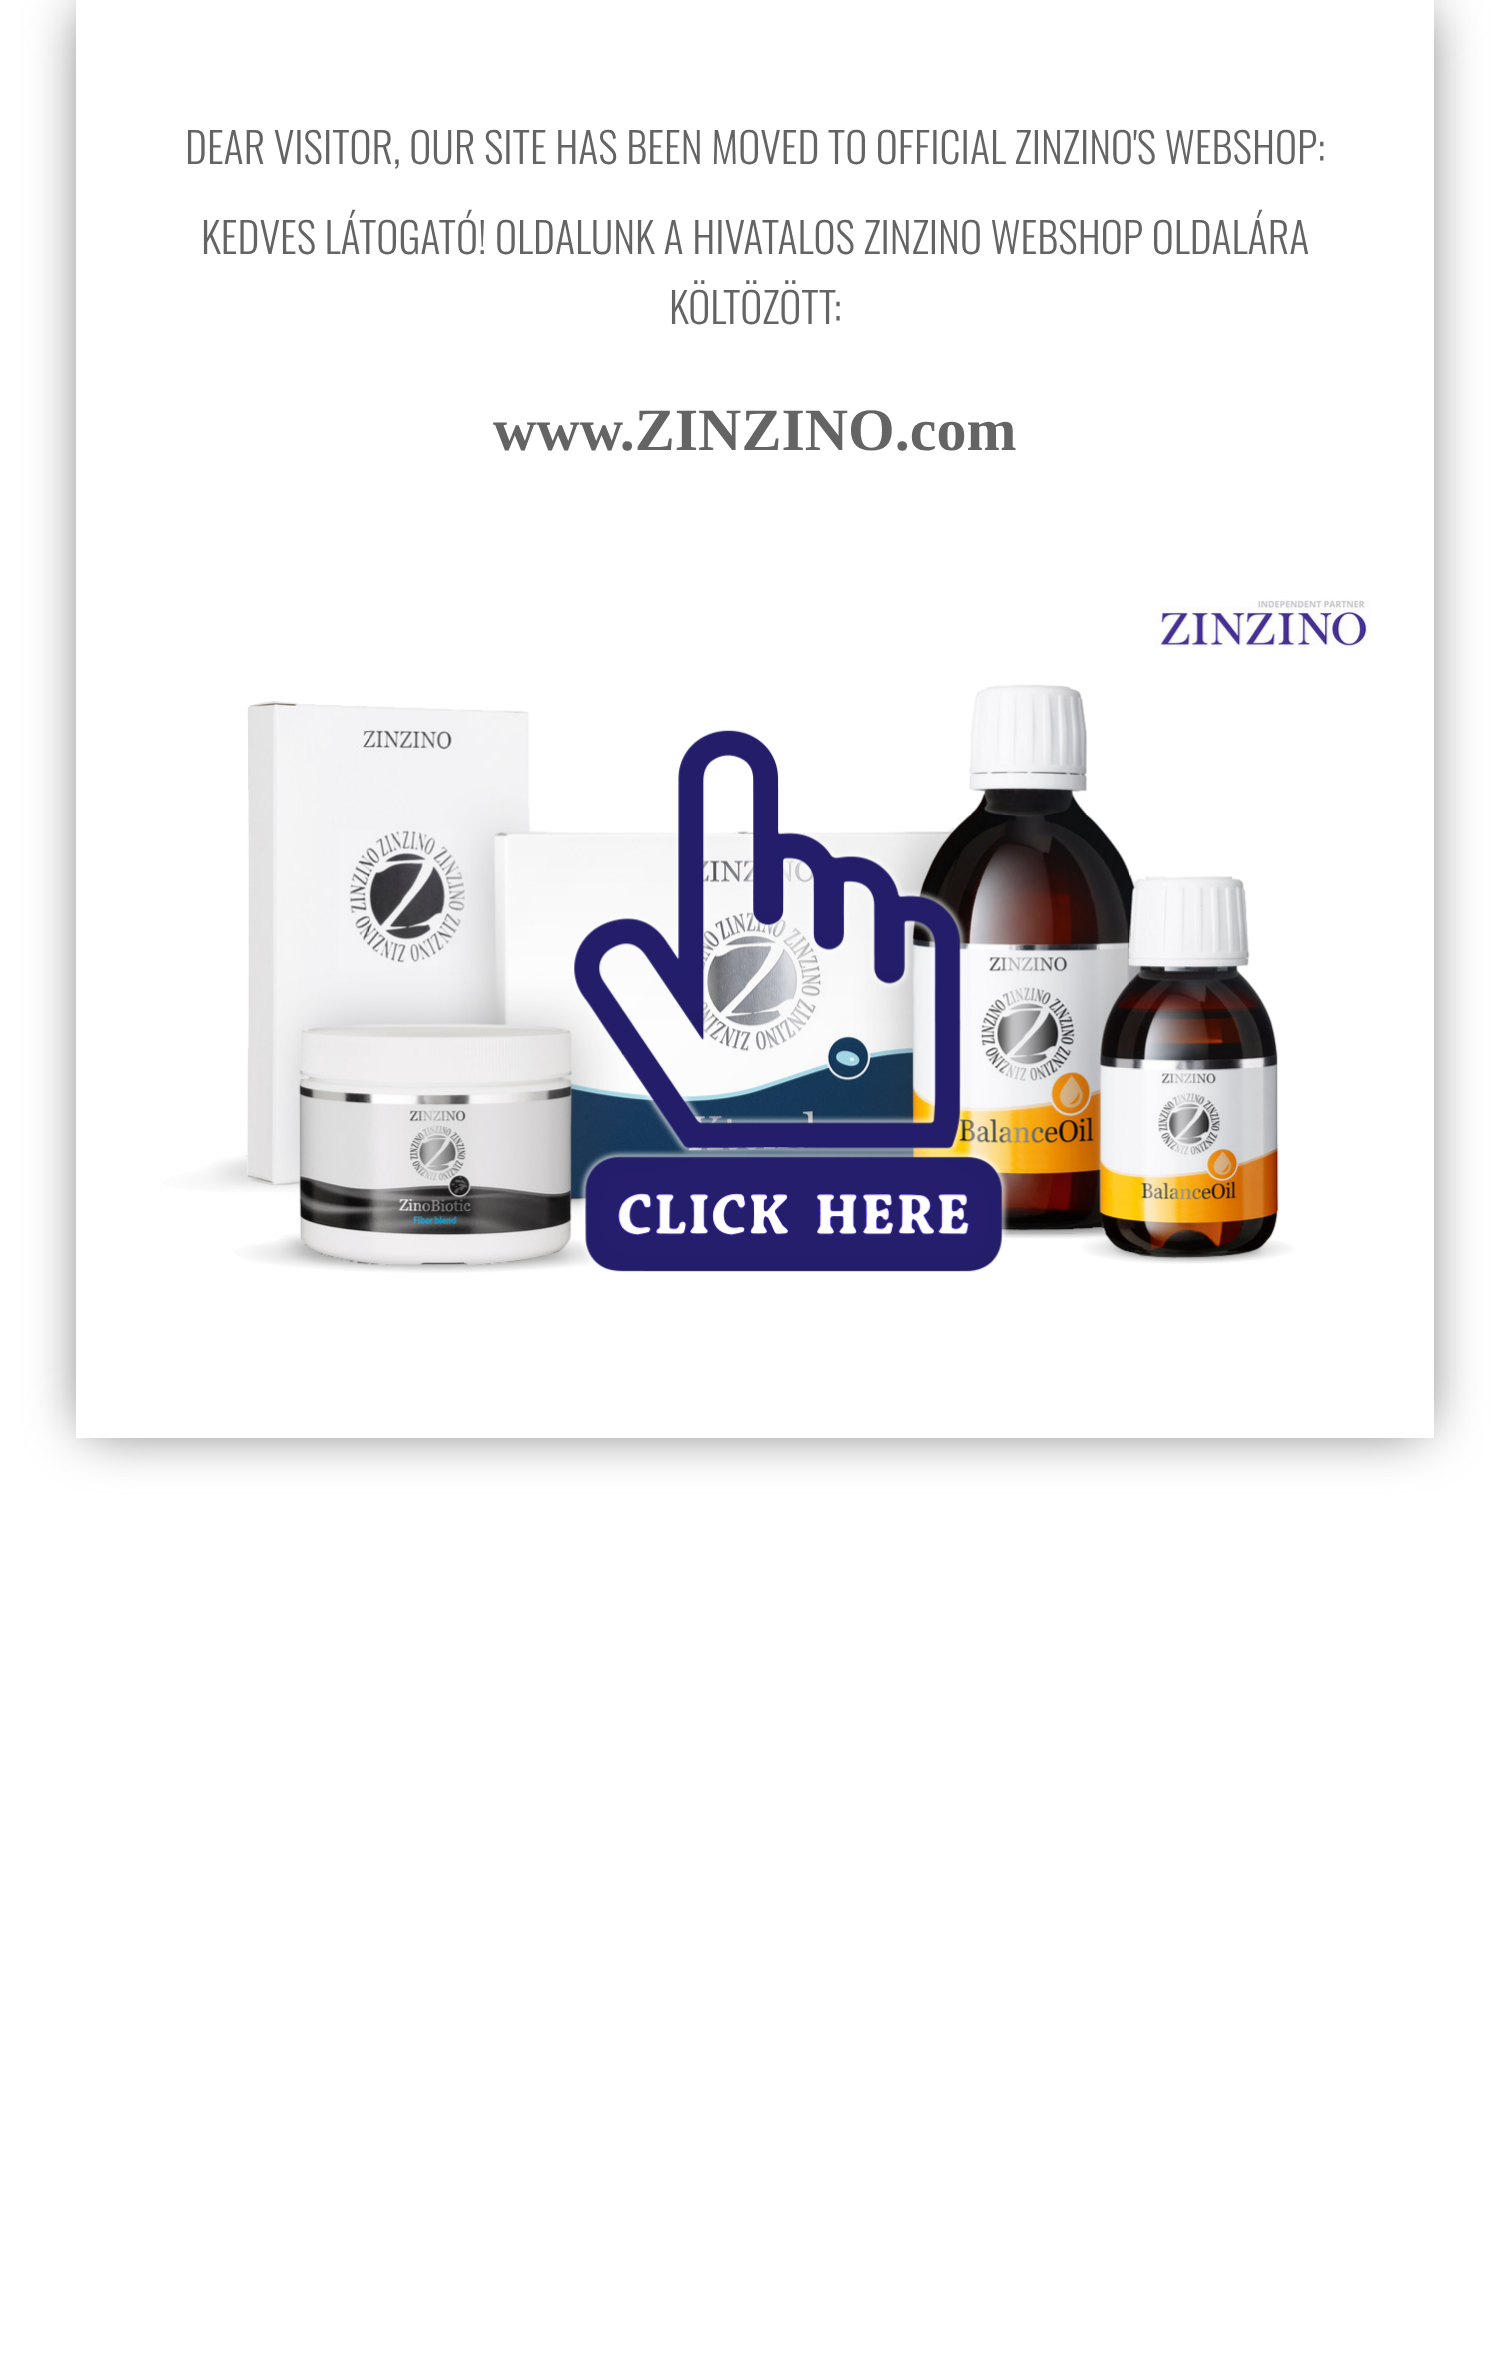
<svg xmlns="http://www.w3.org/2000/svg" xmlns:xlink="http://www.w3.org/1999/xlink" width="1510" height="2368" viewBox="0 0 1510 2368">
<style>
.cls-1{font:300 42px Oswald;fill:#646464}
.cls-2{font:bold 60px Liberation Serif;fill:#646464}
</style>
<defs>
<clipPath id="clip1"><path d="M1 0H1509V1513H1ZM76 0H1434V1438H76Z" clip-rule="evenodd"/></clipPath>
</defs>
<rect width="100%" height="100%" fill="#ffffff"/>
<g clip-path="url(#clip1)">
<rect fill="#646464" filter="blur(28px)" x="86" y="10" width="1338" height="1418"/>
</g>
<image xlink:href="image0.png" x="163" y="599" width="1207" height="674"/>
<text class="cls-1" x="185" y="164">DEAR VISITOR, OUR SITE HAS BEEN MOVED TO OFFICIAL ZINZINO'S WEBSHOP:</text>
<text class="cls-1" x="201" y="254">KEDVES LÁTOGATÓ! OLDALUNK A HIVATALOS ZINZINO WEBSHOP OLDALÁRA</text>
<text class="cls-1" x="669" y="324">KÖLTÖZÖTT:</text>
<text class="cls-2" x="493" y="450">www.ZINZINO.com</text>
</svg>
